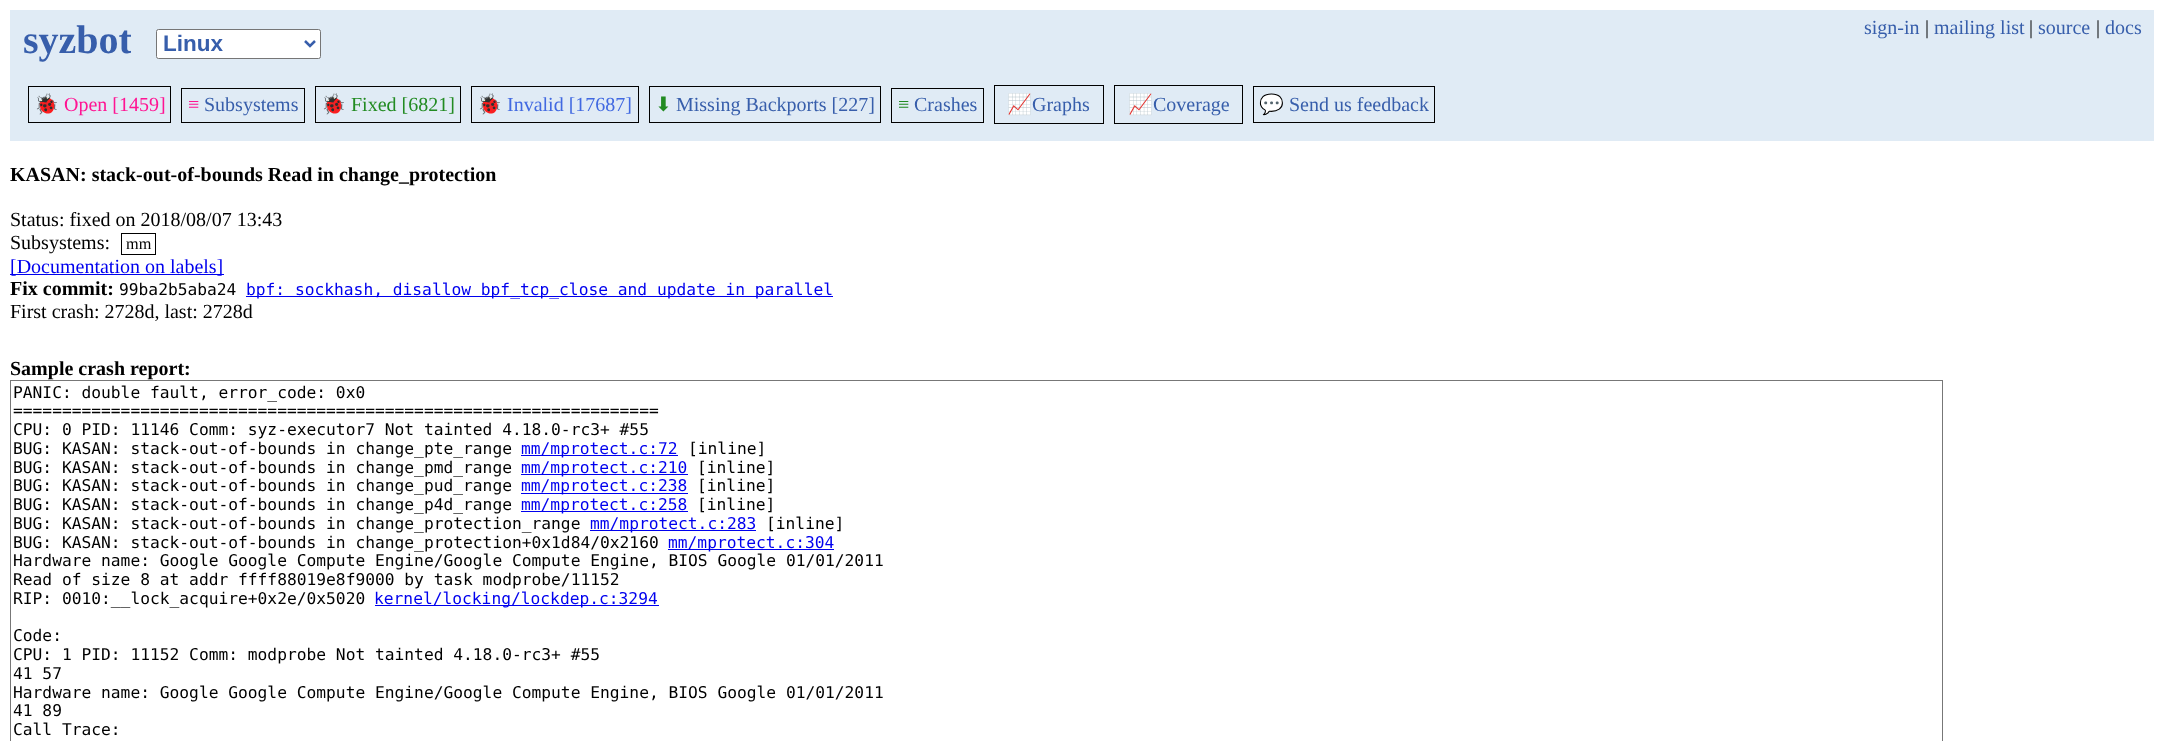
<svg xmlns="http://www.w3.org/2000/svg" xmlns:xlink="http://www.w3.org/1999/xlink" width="2163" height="741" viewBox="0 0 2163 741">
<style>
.cls-1{font:bold 40px Liberation Serif;fill:#375eab}
.cls-2{font:bold 22.5px Liberation Sans;fill:#375eab}
.cls-3{font:20px Liberation Serif;fill:#375eab}
.cls-4{font:20px Liberation Serif;fill:#000000}
.cls-5{font:20px Noto Color Emoji;fill:#ff1493}
.cls-6{font:20px Liberation Serif;fill:#ff1493}
.cls-7{font:20px Noto Color Emoji;fill:#228b22}
.cls-8{font:20px Liberation Serif;fill:#228b22}
.cls-9{font:20px Noto Color Emoji;fill:#4169e1}
.cls-10{font:20px Liberation Serif;fill:#4169e1}
.cls-11{font:20px DejaVu Sans;fill:#228b22}
.cls-12{font:20px Noto Color Emoji;fill:#ff8c00}
.cls-13{font:bold 20px Liberation Serif;fill:#000000}
.cls-14{font:16.25px Liberation Serif;fill:#000000}
.cls-15{font:20px Liberation Serif;fill:#0000ee}
.cls-16{font:16.25px DejaVu Sans Mono;fill:#000000}
.cls-17{font:16.25px DejaVu Sans Mono;fill:#0000ee}
</style>
<defs>
<clipPath id="clip1"><rect x="23" y="16" width="108" height="47"/></clipPath>
</defs>
<rect width="100%" height="100%" fill="#ffffff"/>
<rect fill="#e0ebf5" x="10" y="10" width="2144" height="131"/>
<rect fill="#ffffff" stroke="#767676" x="156.5" y="29.5" width="164" height="29" rx="2"/>
<path fill="none" stroke="#375eab" stroke-width="2.5" d="M305 41L310 46L315 41"/>
<rect fill="none" stroke="#000000" x="28.5" y="86.5" width="142" height="36"/>
<rect fill="none" stroke="#000000" x="181.5" y="88.5" width="123" height="34"/>
<rect fill="none" stroke="#000000" x="315.5" y="86.5" width="145" height="36"/>
<rect fill="none" stroke="#000000" x="471.5" y="86.5" width="167" height="36"/>
<rect fill="none" stroke="#000000" x="649.5" y="86.5" width="231" height="36"/>
<rect fill="none" stroke="#000000" x="891.5" y="88.5" width="92" height="34"/>
<rect fill="none" stroke="#000000" x="994.5" y="85.5" width="109" height="38"/>
<rect fill="none" stroke="#000000" x="1114.5" y="85.5" width="128" height="38"/>
<rect fill="none" stroke="#000000" x="1253.5" y="86.5" width="181" height="36"/>
<rect fill="none" stroke="#000000" x="121.5" y="233.5" width="34" height="21"/>
<rect fill="#0000ee" x="10" y="274" width="214" height="1"/>
<rect fill="#0000ee" x="246" y="296" width="587" height="1"/>
<rect fill="none" stroke="#777777" x="10.5" y="380.5" width="1932" height="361"/>
<rect fill="#0000ee" x="521" y="455" width="157" height="1"/>
<rect fill="#0000ee" x="521" y="474" width="167" height="1"/>
<rect fill="#0000ee" x="521" y="493" width="167" height="1"/>
<rect fill="#0000ee" x="521" y="511" width="167" height="1"/>
<rect fill="#0000ee" x="590" y="530" width="166" height="1"/>
<rect fill="#0000ee" x="668" y="549" width="166" height="1"/>
<rect fill="#0000ee" x="375" y="605" width="284" height="1"/>
<g clip-path="url(#clip1)">
<text class="cls-1" x="23" y="53">syzbot</text>
</g>
<text class="cls-2" x="163" y="51">Linux</text>
<text class="cls-3" x="1864" y="34">sign-in</text>
<text class="cls-4" x="1925" y="34">|</text>
<text class="cls-3" x="1934" y="34">mailing list</text>
<text class="cls-4" x="2029" y="34">|</text>
<text class="cls-3" x="2038" y="34">source</text>
<text class="cls-4" x="2096" y="34">|</text>
<text class="cls-3" x="2105" y="34">docs</text>
<text class="cls-5" x="34" y="111">🐞</text>
<text class="cls-6" x="64" y="111">Open [1459]</text>
<text class="cls-6" x="188" y="111">≡</text>
<text class="cls-3" x="204" y="111">Subsystems</text>
<text class="cls-7" x="321" y="111">🐞</text>
<text class="cls-8" x="351" y="111">Fixed [6821]</text>
<text class="cls-9" x="477" y="111">🐞</text>
<text class="cls-10" x="507" y="111">Invalid [17687]</text>
<text class="cls-11" x="655" y="111">⬇</text>
<text class="cls-3" x="676" y="111">Missing Backports [227]</text>
<text class="cls-8" x="898" y="111">≡</text>
<text class="cls-3" x="914" y="111">Crashes</text>
<text class="cls-12" x="1007" y="111">📈</text>
<text class="cls-3" x="1032" y="111">Graphs</text>
<text class="cls-12" x="1128" y="111">📈</text>
<text class="cls-3" x="1153" y="111">Coverage</text>
<text class="cls-7" x="1259" y="111">💬</text>
<text class="cls-3" x="1289" y="111">Send us feedback</text>
<text class="cls-13" x="10" y="181">KASAN: stack-out-of-bounds Read in change_protection</text>
<text class="cls-4"><tspan x="10" y="226">Status: fixed on 2018/08/07 13:43</tspan><tspan x="10" y="249">Subsystems:</tspan></text>
<text class="cls-14" x="126" y="249">mm</text>
<text class="cls-15" x="10" y="273">[Documentation on labels]</text>
<text class="cls-13" x="10" y="295">Fix commit:</text>
<text class="cls-16" x="119" y="295">99ba2b5aba24</text>
<text class="cls-17" x="246" y="295">bpf: sockhash, disallow bpf_tcp_close and update in parallel</text>
<text class="cls-4" x="10" y="318">First crash: 2728d, last: 2728d</text>
<text class="cls-13" x="10" y="375">Sample crash report:</text>
<text class="cls-16"><tspan x="13" y="398">PANIC: double fault, error_code: 0x0</tspan><tspan x="13" y="416">==================================================================</tspan><tspan x="13" y="435">CPU: 0 PID: 11146 Comm: syz-executor7 Not tainted 4.18.0-rc3+ #55</tspan><tspan x="13" y="454">BUG: KASAN: stack-out-of-bounds in change_pte_range</tspan></text>
<text class="cls-17" x="521" y="454">mm/mprotect.c:72</text>
<text class="cls-16" x="688" y="454">[inline]</text>
<text class="cls-16" x="13" y="473">BUG: KASAN: stack-out-of-bounds in change_pmd_range</text>
<text class="cls-17" x="521" y="473">mm/mprotect.c:210</text>
<text class="cls-16" x="697" y="473">[inline]</text>
<text class="cls-16" x="13" y="491">BUG: KASAN: stack-out-of-bounds in change_pud_range</text>
<text class="cls-17" x="521" y="491">mm/mprotect.c:238</text>
<text class="cls-16" x="697" y="491">[inline]</text>
<text class="cls-16" x="13" y="510">BUG: KASAN: stack-out-of-bounds in change_p4d_range</text>
<text class="cls-17" x="521" y="510">mm/mprotect.c:258</text>
<text class="cls-16" x="697" y="510">[inline]</text>
<text class="cls-16" x="13" y="529">BUG: KASAN: stack-out-of-bounds in change_protection_range</text>
<text class="cls-17" x="590" y="529">mm/mprotect.c:283</text>
<text class="cls-16" x="766" y="529">[inline]</text>
<text class="cls-16" x="13" y="548">BUG: KASAN: stack-out-of-bounds in change_protection+0x1d84/0x2160</text>
<text class="cls-17" x="668" y="548">mm/mprotect.c:304</text>
<text class="cls-16"><tspan x="13" y="566">Hardware name: Google Google Compute Engine/Google Compute Engine, BIOS Google 01/01/2011</tspan><tspan x="13" y="585">Read of size 8 at addr ffff88019e8f9000 by task modprobe/11152</tspan><tspan x="13" y="604">RIP: 0010:__lock_acquire+0x2e/0x5020</tspan></text>
<text class="cls-17" x="374" y="604">kernel/locking/lockdep.c:3294</text>
<text class="cls-16"><tspan x="13" y="641">Code:</tspan><tspan x="13" y="660">CPU: 1 PID: 11152 Comm: modprobe Not tainted 4.18.0-rc3+ #55</tspan><tspan x="13" y="679">41 57</tspan><tspan x="13" y="698">Hardware name: Google Google Compute Engine/Google Compute Engine, BIOS Google 01/01/2011</tspan><tspan x="13" y="716">41 89</tspan><tspan x="13" y="735">Call Trace:</tspan></text>
</svg>
